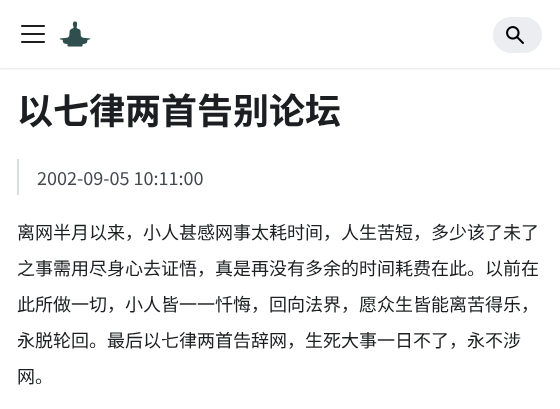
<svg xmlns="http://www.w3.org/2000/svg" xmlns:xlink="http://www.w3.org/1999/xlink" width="560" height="409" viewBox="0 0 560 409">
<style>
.cls-1{font:bold 36px Noto Sans SC;fill:#1c1e21}
.cls-2{font:18px Noto Sans SC;fill:#444950}
.cls-3{font:18px Noto Sans SC;fill:#1c1e21}
</style>
<defs>
<clipPath id="clip1"><rect x="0" y="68" width="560" height="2"/></clipPath>
</defs>
<rect width="100%" height="100%" fill="#ffffff"/>
<g clip-path="url(#clip1)">
<rect fill="#000000" fill-opacity="0.1" filter="blur(1px)" x="0" y="1" width="560" height="68"/>
</g>
<image xlink:href="image0.png" x="21" y="25" width="24" height="18"/>
<image xlink:href="image1.png" x="59" y="21" width="32" height="26"/>
<rect fill="#ebedf0" x="493" y="17" width="49" height="36" rx="18"/>
<image xlink:href="image2.png" x="506" y="26" width="18" height="18"/>
<rect fill="#dadde1" x="17" y="159" width="2" height="36"/>
<text class="cls-1" x="17" y="124">以七律两首告别论坛</text>
<text class="cls-2" x="37" y="185">2002-09-05 10:11:00</text>
<text class="cls-3" x="17" y="239">离网半月以来，小人甚感网事太耗时间，人生苦短，多少该了未了</text>
<text class="cls-3" x="17" y="275">之事需用尽身心去证悟，真是再没有多余的时间耗费在此。以前在</text>
<text class="cls-3" x="17" y="311">此所做一切，小人皆一一忏悔，回向法界，愿众生皆能离苦得乐，</text>
<text class="cls-3" x="17" y="347">永脱轮回。最后以七律两首告辞网，生死大事一日不了，永不涉</text>
<text class="cls-3" x="17" y="383">网。</text>
</svg>
